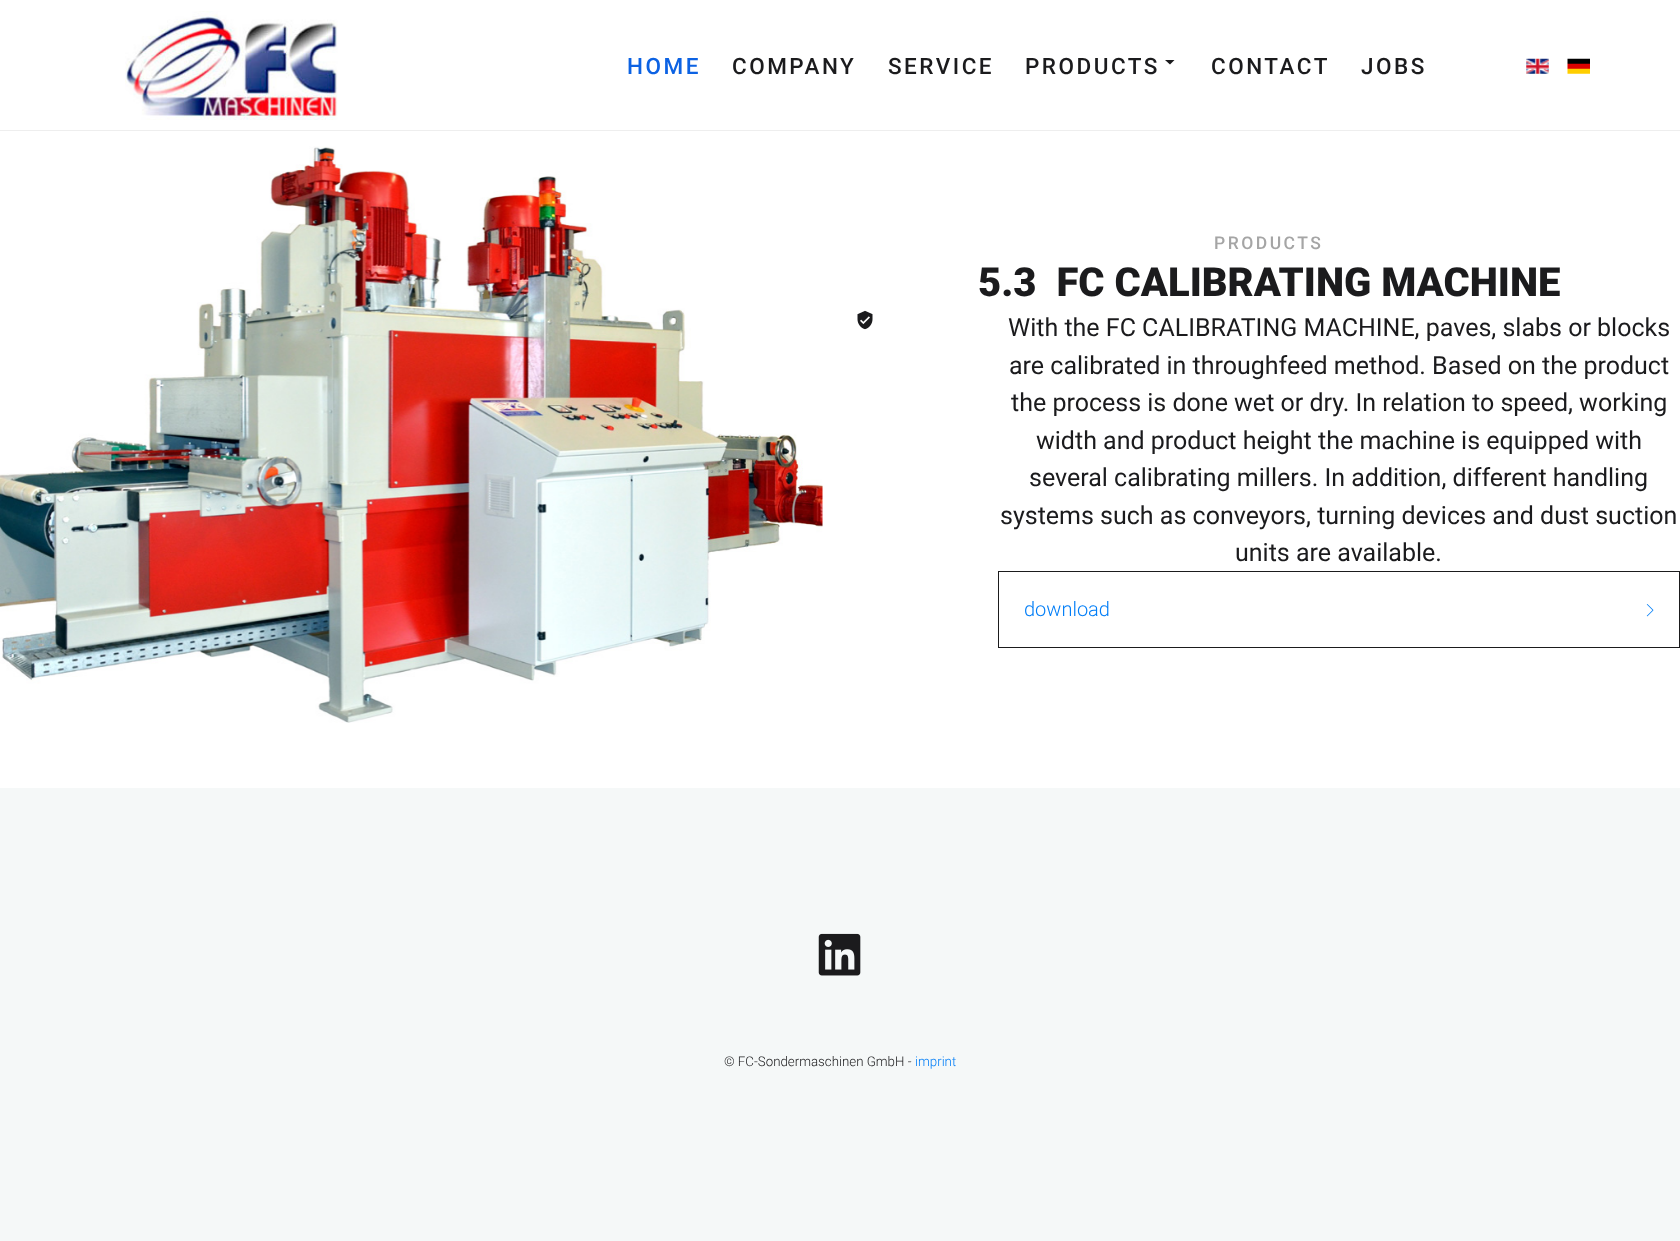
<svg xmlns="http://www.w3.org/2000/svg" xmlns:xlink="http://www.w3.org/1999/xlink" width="1680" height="1241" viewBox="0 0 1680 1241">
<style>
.cls-1{font:500 22.5px Roboto;letter-spacing:2.5px;fill:#0c62e3}
.cls-2{font:500 22.5px Roboto;letter-spacing:2.5px;fill:#1b1b1d}
.cls-3{font:500 17.5px Roboto;letter-spacing:2.5px;fill:#a5a5a5}
.cls-4{font:900 40px Roboto;fill:#1b1b1d}
.cls-5{font:25px Roboto;fill:#1b1b1d}
.cls-6{font:300 20px Roboto;fill:#007df7}
.cls-7{font:300 13.3px Roboto;fill:#1b1b1d}
.cls-8{font:300 13.3px Roboto;fill:#007df7}
</style>
<rect width="100%" height="100%" fill="#ffffff"/>
<rect fill="#eeeeee" x="0" y="130" width="1680" height="1"/>
<image xlink:href="image0.png" x="125" y="11" width="213" height="109"/>
<path fill="#1b1b1d" d="M1165 60H1174.5L1170 64.5Z"/>
<image xlink:href="image1.png" x="1526" y="58" width="23" height="16"/>
<image xlink:href="image2.png" x="1567" y="58" width="23" height="16"/>
<image xlink:href="image3.png" x="0" y="146" width="823" height="577"/>
<image xlink:href="image4.png" x="857" y="310" width="16" height="20"/>
<rect fill="none" stroke="#1b1b1d" x="998.5" y="571.5" width="681" height="76"/>
<image xlink:href="image5.png" x="1646" y="604" width="8" height="13"/>
<rect fill="#f5f8f8" x="0" y="788" width="1680" height="453"/>
<image xlink:href="image6.png" x="818" y="933" width="43" height="43"/>
<text class="cls-1" x="627" y="74">HOME</text>
<text class="cls-2" x="732" y="74">COMPANY</text>
<text class="cls-2" x="888" y="74">SERVICE</text>
<text class="cls-2" x="1025" y="74">PRODUCTS</text>
<text class="cls-2" x="1211" y="74">CONTACT</text>
<text class="cls-2" x="1361" y="74">JOBS</text>
<text class="cls-3" x="1214" y="249">PRODUCTS</text>
<text class="cls-4" xml:space="preserve" x="978" y="296">5.3  FC CALIBRATING MACHINE</text>
<text class="cls-5" x="1008" y="336">With the FC CALIBRATING MACHINE, paves, slabs or blocks</text>
<text class="cls-5" x="1009" y="374">are calibrated in throughfeed method. Based on the product</text>
<text class="cls-5" x="1011" y="411">the process is done wet or dry. In relation to speed, working</text>
<text class="cls-5" x="1036" y="449">width and product height the machine is equipped with</text>
<text class="cls-5" x="1029" y="486">several calibrating millers. In addition, different handling</text>
<text class="cls-5" x="1000" y="524">systems such as conveyors, turning devices and dust suction</text>
<text class="cls-5" x="1235" y="561">units are available.</text>
<text class="cls-6" x="1024" y="616">download</text>
<text class="cls-7" x="724" y="1066">© FC-Sondermaschinen GmbH -</text>
<text class="cls-8" x="915" y="1066">imprint</text>
</svg>
